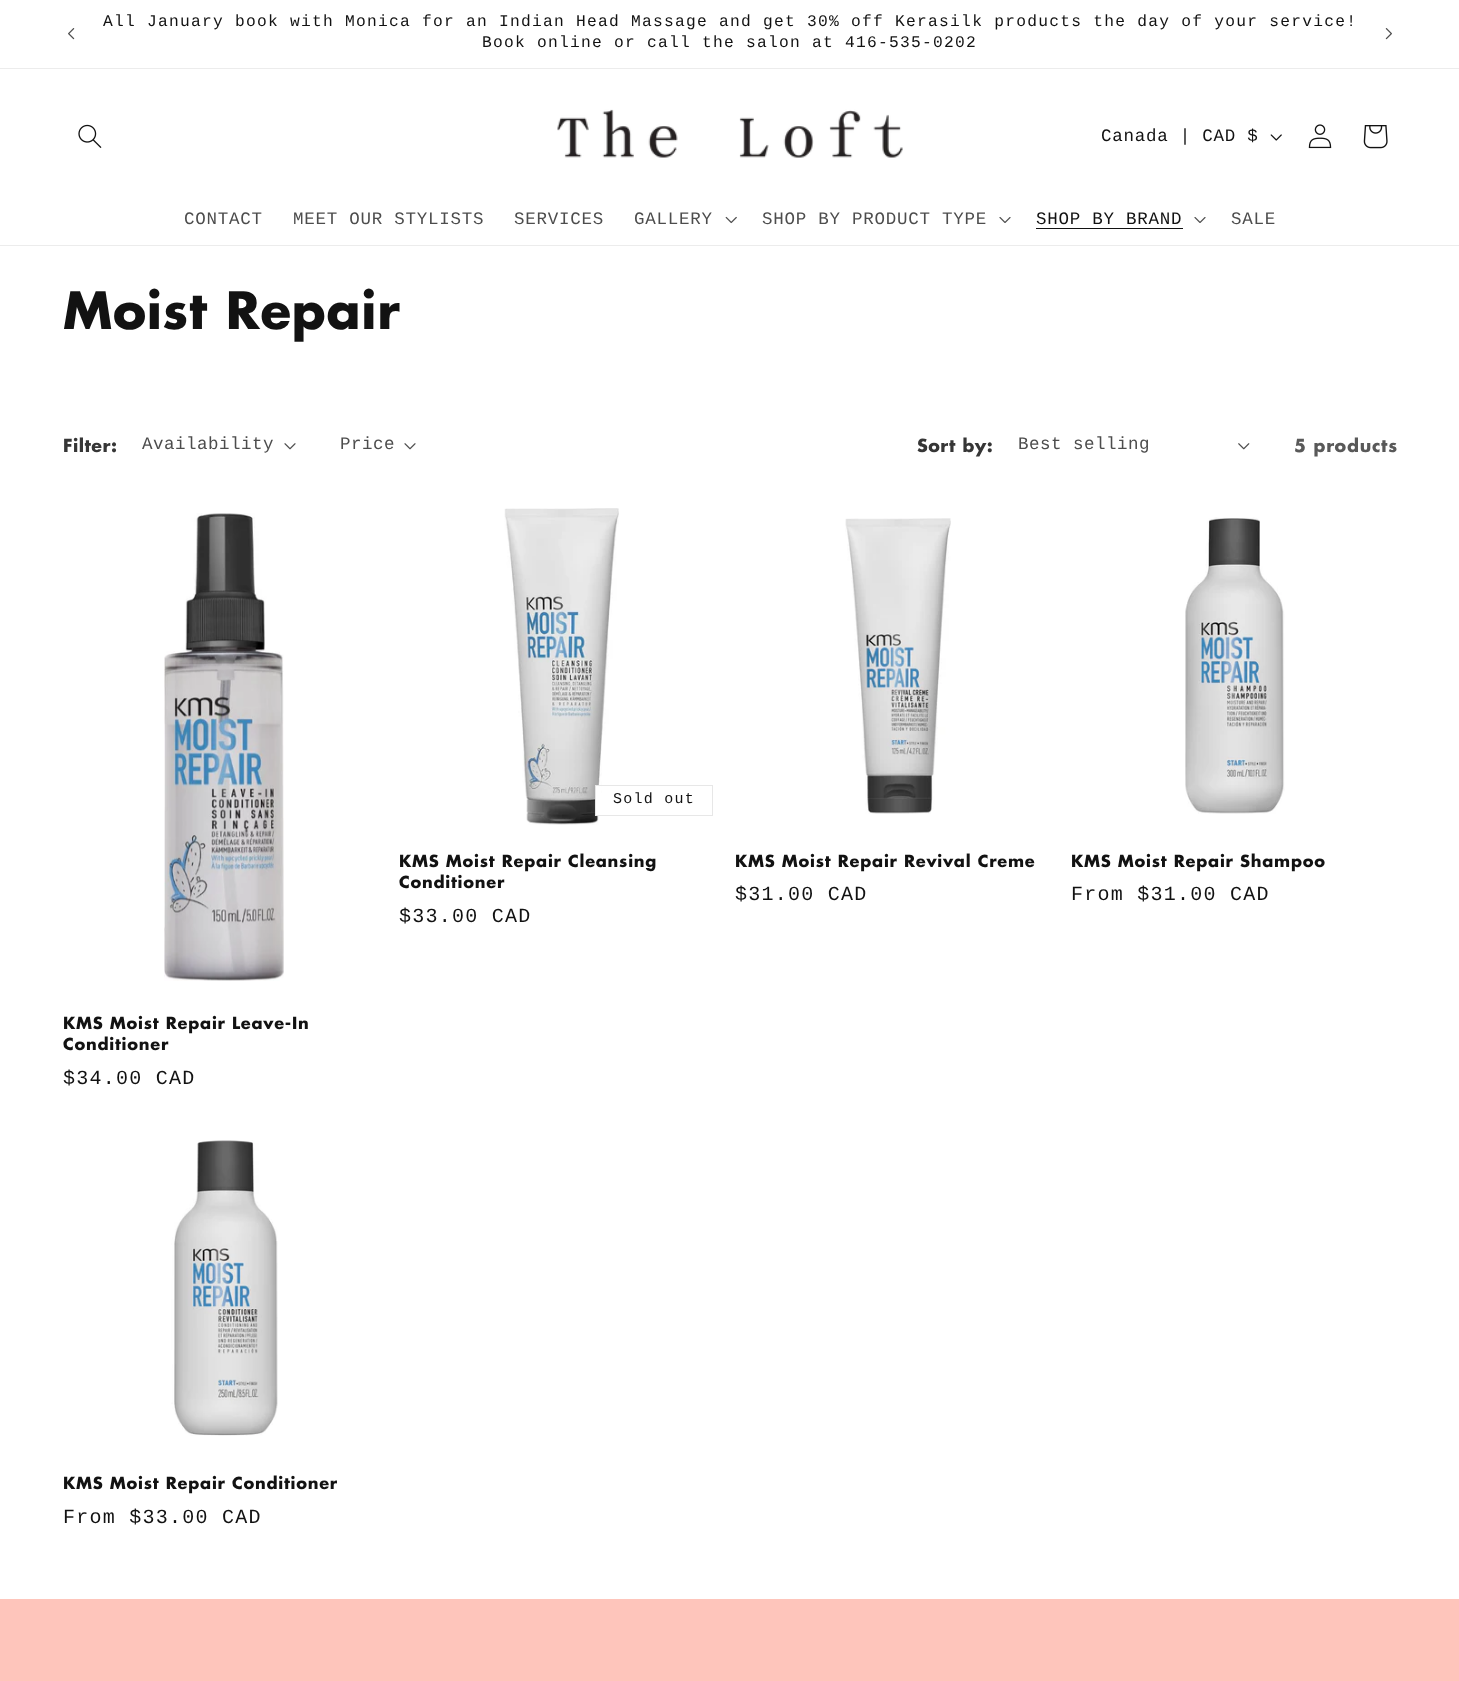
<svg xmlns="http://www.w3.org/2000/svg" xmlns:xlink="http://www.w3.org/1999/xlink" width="1459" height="1681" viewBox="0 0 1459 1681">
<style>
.cls-1{font:16.25px Liberation Mono;letter-spacing:1.25px;fill:#121212}
.cls-2{font:17.5px Liberation Mono;letter-spacing:0.75px;fill:#121212}
.cls-3{font:17.5px Liberation Mono;letter-spacing:0.75px;fill:#4d4d4d}
.cls-4{font:bold 50px Futura;letter-spacing:0.75px;fill:#121212}
.cls-5{font:bold 17.5px Futura;letter-spacing:0.5px;fill:#363636}
.cls-6{font:17.5px Liberation Mono;letter-spacing:0.5px;fill:#4d4d4d}
.cls-7{font:bold 17.5px Futura;letter-spacing:0.75px;fill:#595959}
.cls-8{font:15px Liberation Mono;letter-spacing:1.25px;fill:#121212}
.cls-9{font:bold 16.25px Futura;letter-spacing:0.75px;fill:#121212}
.cls-10{font:20px Liberation Mono;letter-spacing:1.25px;fill:#121212}
</style>
<rect width="100%" height="100%" fill="#ffffff"/>
<rect fill="#ececec" x="0" y="68" width="1459" height="1"/>
<image xlink:href="image0.png" x="68" y="28" width="7" height="12"/>
<image xlink:href="image1.png" x="1385" y="28" width="7" height="12"/>
<rect fill="#ececec" x="0" y="245" width="1459" height="1"/>
<image xlink:href="image2.png" x="78" y="124" width="24" height="24"/>
<image xlink:href="image3.png" x="557" y="109" width="346" height="49"/>
<image xlink:href="image4.png" x="1270" y="134" width="12" height="7"/>
<image xlink:href="image5.png" x="1308" y="124" width="24" height="25"/>
<image xlink:href="image6.png" x="1363" y="125" width="25" height="24"/>
<image xlink:href="image7.png" x="725" y="216" width="12" height="8"/>
<image xlink:href="image8.png" x="999" y="217" width="12" height="6"/>
<rect fill="#121212" x="1036" y="228" width="147" height="1"/>
<image xlink:href="image8.png" x="1194" y="217" width="12" height="6"/>
<image xlink:href="image9.png" x="284" y="443" width="12" height="7"/>
<image xlink:href="image9.png" x="404" y="443" width="12" height="7"/>
<image xlink:href="image10.png" x="1238" y="443" width="12" height="7"/>
<image xlink:href="image11.png" x="504" y="508" width="115" height="317"/>
<rect fill="#ffffff" x="596" y="786" width="5" height="29"/>
<rect fill="none" stroke="#e7e7e7" x="595.5" y="785.5" width="117" height="30"/>
<image xlink:href="image12.png" x="845" y="518" width="106" height="296"/>
<image xlink:href="image13.png" x="1185" y="517" width="100" height="297"/>
<image xlink:href="image14.png" x="164" y="513" width="120" height="468"/>
<image xlink:href="image15.png" x="171" y="1140" width="107" height="296"/>
<rect fill="#fec5bb" x="0" y="1599" width="1459" height="82"/>
<text class="cls-1" x="103" y="26">All January book with Monica for an Indian Head Massage and get 30% off Kerasilk products the day of your service!</text>
<text class="cls-1" x="482" y="47">Book online or call the salon at 416-535-0202</text>
<text class="cls-2" x="1101" y="141">Canada | CAD $</text>
<text class="cls-3" x="184" y="224">CONTACT</text>
<text class="cls-3" x="293" y="224">MEET OUR STYLISTS</text>
<text class="cls-3" x="514" y="224">SERVICES</text>
<text class="cls-3" x="634" y="224">GALLERY</text>
<text class="cls-3" x="762" y="224">SHOP BY PRODUCT TYPE</text>
<text class="cls-2" x="1036" y="224">SHOP BY BRAND</text>
<text class="cls-3" x="1231" y="224">SALE</text>
<text class="cls-4" x="63" y="329">Moist Repair</text>
<text class="cls-5" x="63" y="452">Filter:</text>
<text class="cls-6" x="142" y="449">Availability</text>
<text class="cls-6" x="340" y="449">Price</text>
<text class="cls-5" x="917" y="452">Sort by:</text>
<text class="cls-6" x="1018" y="449">Best selling</text>
<text class="cls-7" x="1294" y="452">5 products</text>
<text class="cls-8" x="613" y="803">Sold out</text>
<text class="cls-9"><tspan x="399" y="867">KMS Moist Repair Cleansing</tspan><tspan x="399" y="888">Conditioner</tspan></text>
<text class="cls-10" x="399" y="922">$33.00 CAD</text>
<text class="cls-9" x="735" y="867">KMS Moist Repair Revival Creme</text>
<text class="cls-10" x="735" y="900">$31.00 CAD</text>
<text class="cls-9" x="1071" y="867">KMS Moist Repair Shampoo</text>
<text class="cls-10" x="1071" y="900">From $31.00 CAD</text>
<text class="cls-9"><tspan x="63" y="1029">KMS Moist Repair Leave-In</tspan><tspan x="63" y="1050">Conditioner</tspan></text>
<text class="cls-10" x="63" y="1084">$34.00 CAD</text>
<text class="cls-9" x="63" y="1489">KMS Moist Repair Conditioner</text>
<text class="cls-10" x="63" y="1523">From $33.00 CAD</text>
</svg>
